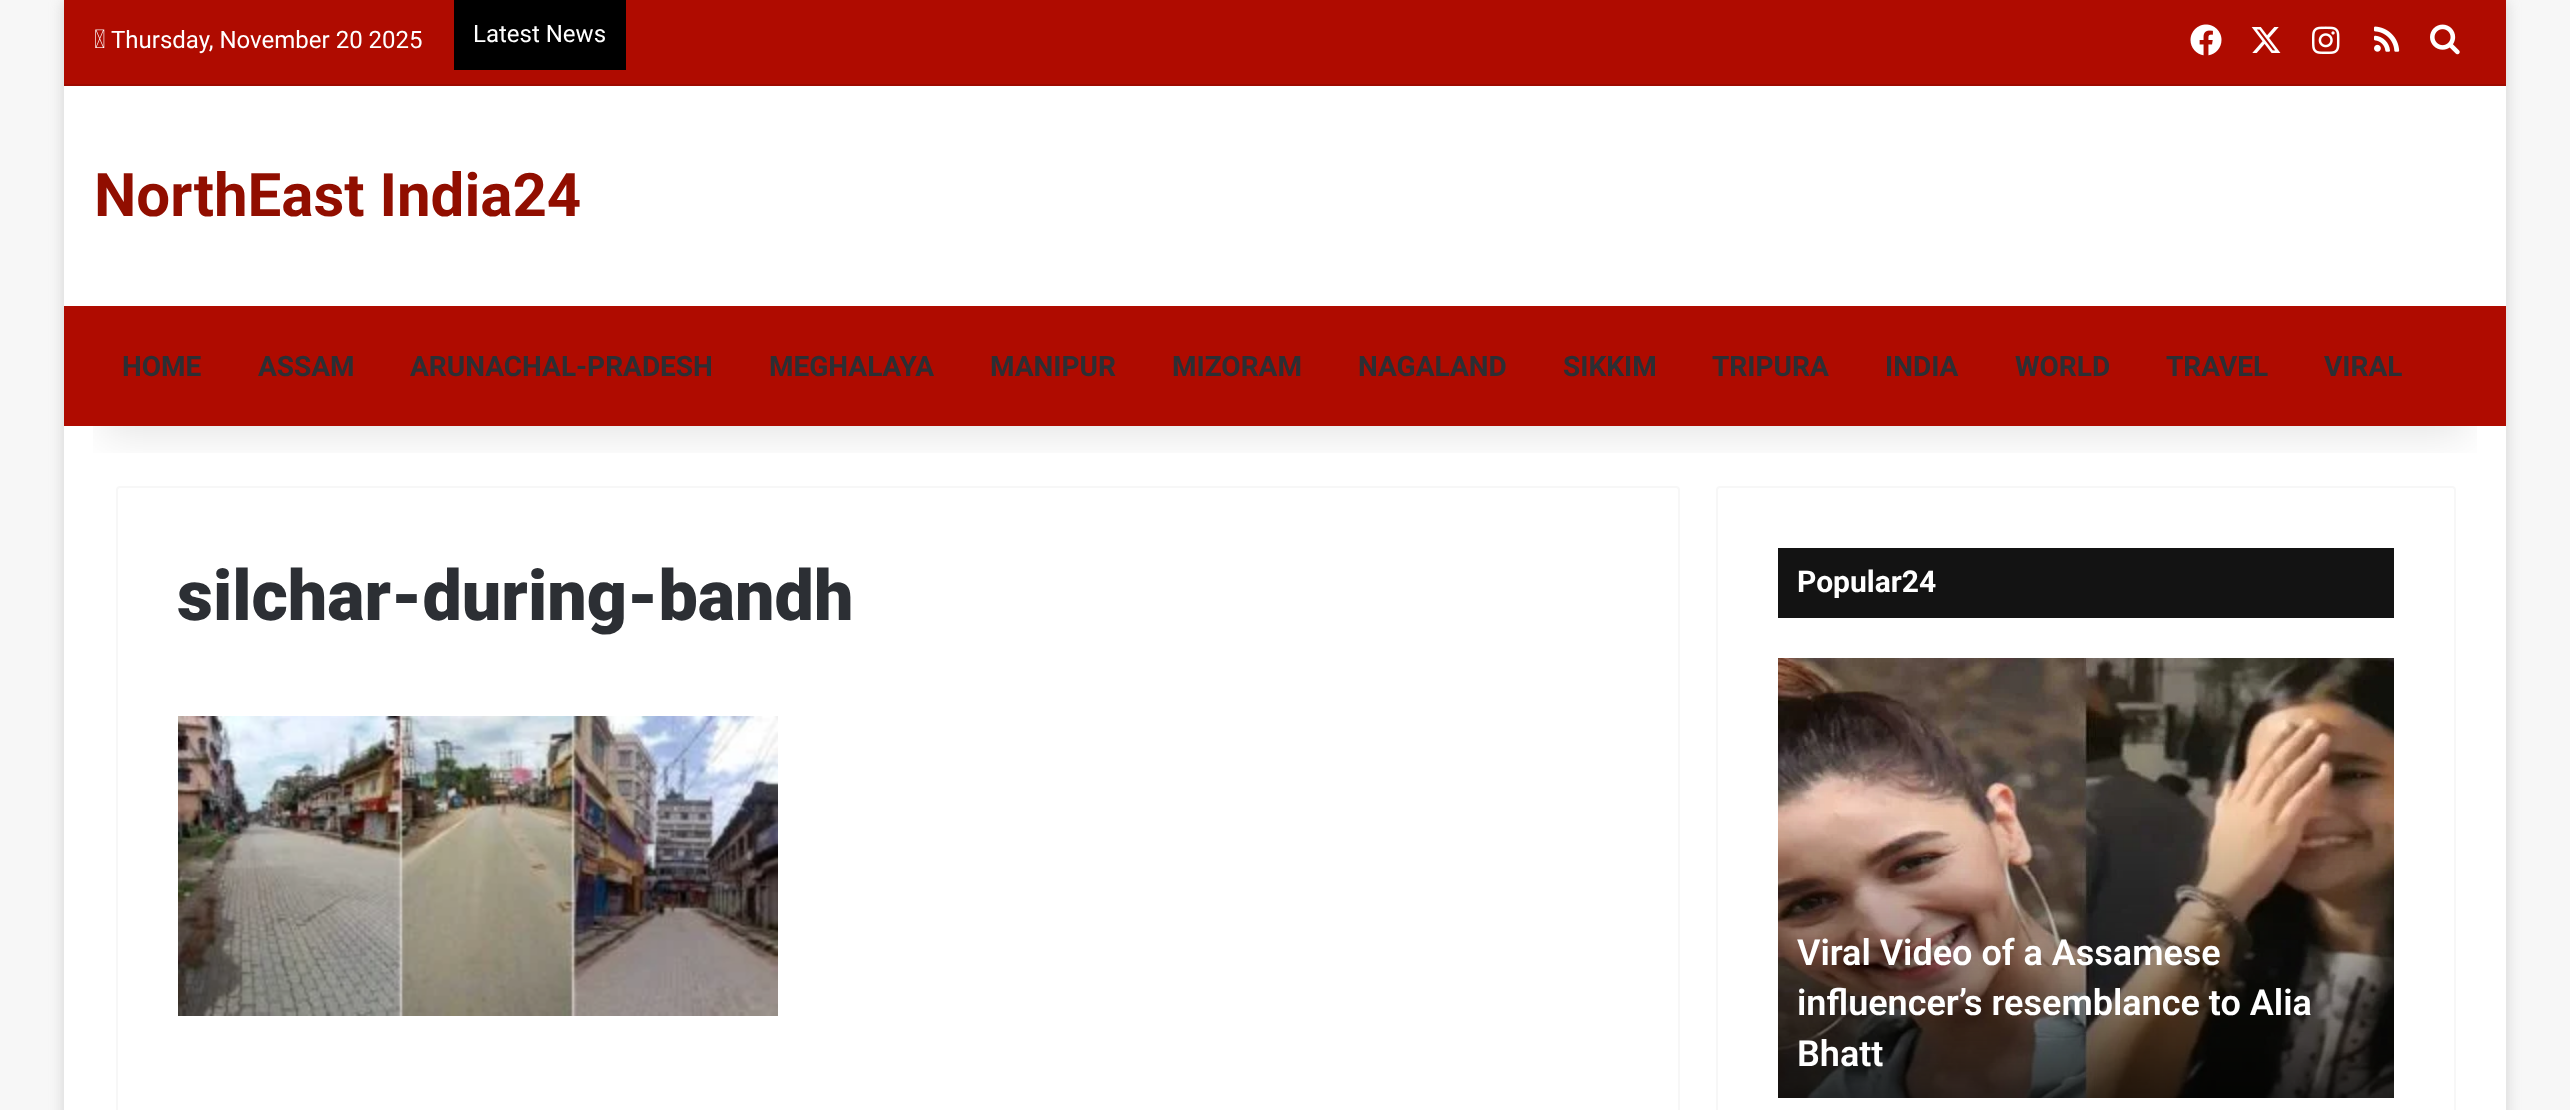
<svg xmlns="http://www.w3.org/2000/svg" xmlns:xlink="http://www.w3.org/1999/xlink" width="2570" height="1110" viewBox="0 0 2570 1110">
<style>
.cls-1{font:24px Roboto;fill:#ffffff}
.cls-2{font:bold 60px Roboto;fill:#910e00}
.cls-3{font:bold 28px Roboto;fill:#2c2f34}
.cls-4{font:900 70px Roboto;fill:#2c2f34}
.cls-5{font:bold 30px Roboto;fill:#ffffff}
.cls-6{font:600 36px Roboto;fill:#ffffff}
</style>
<defs>
<clipPath id="clip1"><rect x="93" y="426" width="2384" height="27"/></clipPath>
</defs>
<rect width="100%" height="100%" fill="#f7f7f7"/>
<rect fill="#ababab" fill-opacity="0.5" filter="blur(7px)" x="64" y="2" width="2442" height="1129"/>
<rect fill="#ffffff" x="64" y="86" width="2442" height="1024"/>
<rect fill="none" stroke="#f7f7f7" stroke-width="2" x="117" y="487" width="1562" height="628" rx="3"/>
<rect fill="none" stroke="#f7f7f7" stroke-width="2" x="1717" y="487" width="738" height="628" rx="3"/>
<g clip-path="url(#clip1)">
<rect fill="#000000" fill-opacity="0.1" filter="blur(20px)" x="104" y="90" width="2362" height="346"/>
</g>
<rect fill="#af0b00" x="64" y="0" width="2442" height="84"/>
<rect fill="#9e0a00" x="64" y="84" width="2442" height="2"/>
<image xlink:href="image0.png" x="95" y="29" width="10" height="19"/>
<rect fill="#000000" x="454" y="0" width="172" height="70"/>
<image xlink:href="image1.png" x="2190" y="24" width="32" height="32"/>
<image xlink:href="image2.png" x="2251" y="27" width="30" height="26"/>
<image xlink:href="image3.png" x="2312" y="26" width="28" height="28"/>
<image xlink:href="image4.png" x="2374" y="26" width="26" height="26"/>
<image xlink:href="image5.png" x="2430" y="24" width="30" height="31"/>
<rect fill="#af0b00" x="64" y="306" width="2442" height="120"/>
<image xlink:href="image6.png" x="178" y="716" width="600" height="300"/>
<rect fill="#131313" x="1778" y="548" width="616" height="70"/>
<image xlink:href="image7.png" x="1778" y="658" width="616" height="440"/>
<text class="cls-1" x="111" y="48">Thursday, November 20 2025</text>
<text class="cls-1" x="473" y="42">Latest News</text>
<text class="cls-2" x="94" y="216">NorthEast India24</text>
<text class="cls-3" x="122" y="376">HOME</text>
<text class="cls-3" x="258" y="376">ASSAM</text>
<text class="cls-3" x="410" y="376">ARUNACHAL-PRADESH</text>
<text class="cls-3" x="769" y="376">MEGHALAYA</text>
<text class="cls-3" x="990" y="376">MANIPUR</text>
<text class="cls-3" x="1172" y="376">MIZORAM</text>
<text class="cls-3" x="1358" y="376">NAGALAND</text>
<text class="cls-3" x="1563" y="376">SIKKIM</text>
<text class="cls-3" x="1712" y="376">TRIPURA</text>
<text class="cls-3" x="1885" y="376">INDIA</text>
<text class="cls-3" x="2015" y="376">WORLD</text>
<text class="cls-3" x="2166" y="376">TRAVEL</text>
<text class="cls-3" x="2324" y="376">VIRAL</text>
<text class="cls-4" x="177" y="620">silchar-during-bandh</text>
<text class="cls-5" x="1797" y="592">Popular24</text>
<text class="cls-6"><tspan x="1797" y="965">Viral Video of a Assamese</tspan><tspan x="1797" y="1015">influencer’s resemblance to Alia</tspan><tspan x="1797" y="1066">Bhatt</tspan></text>
</svg>
